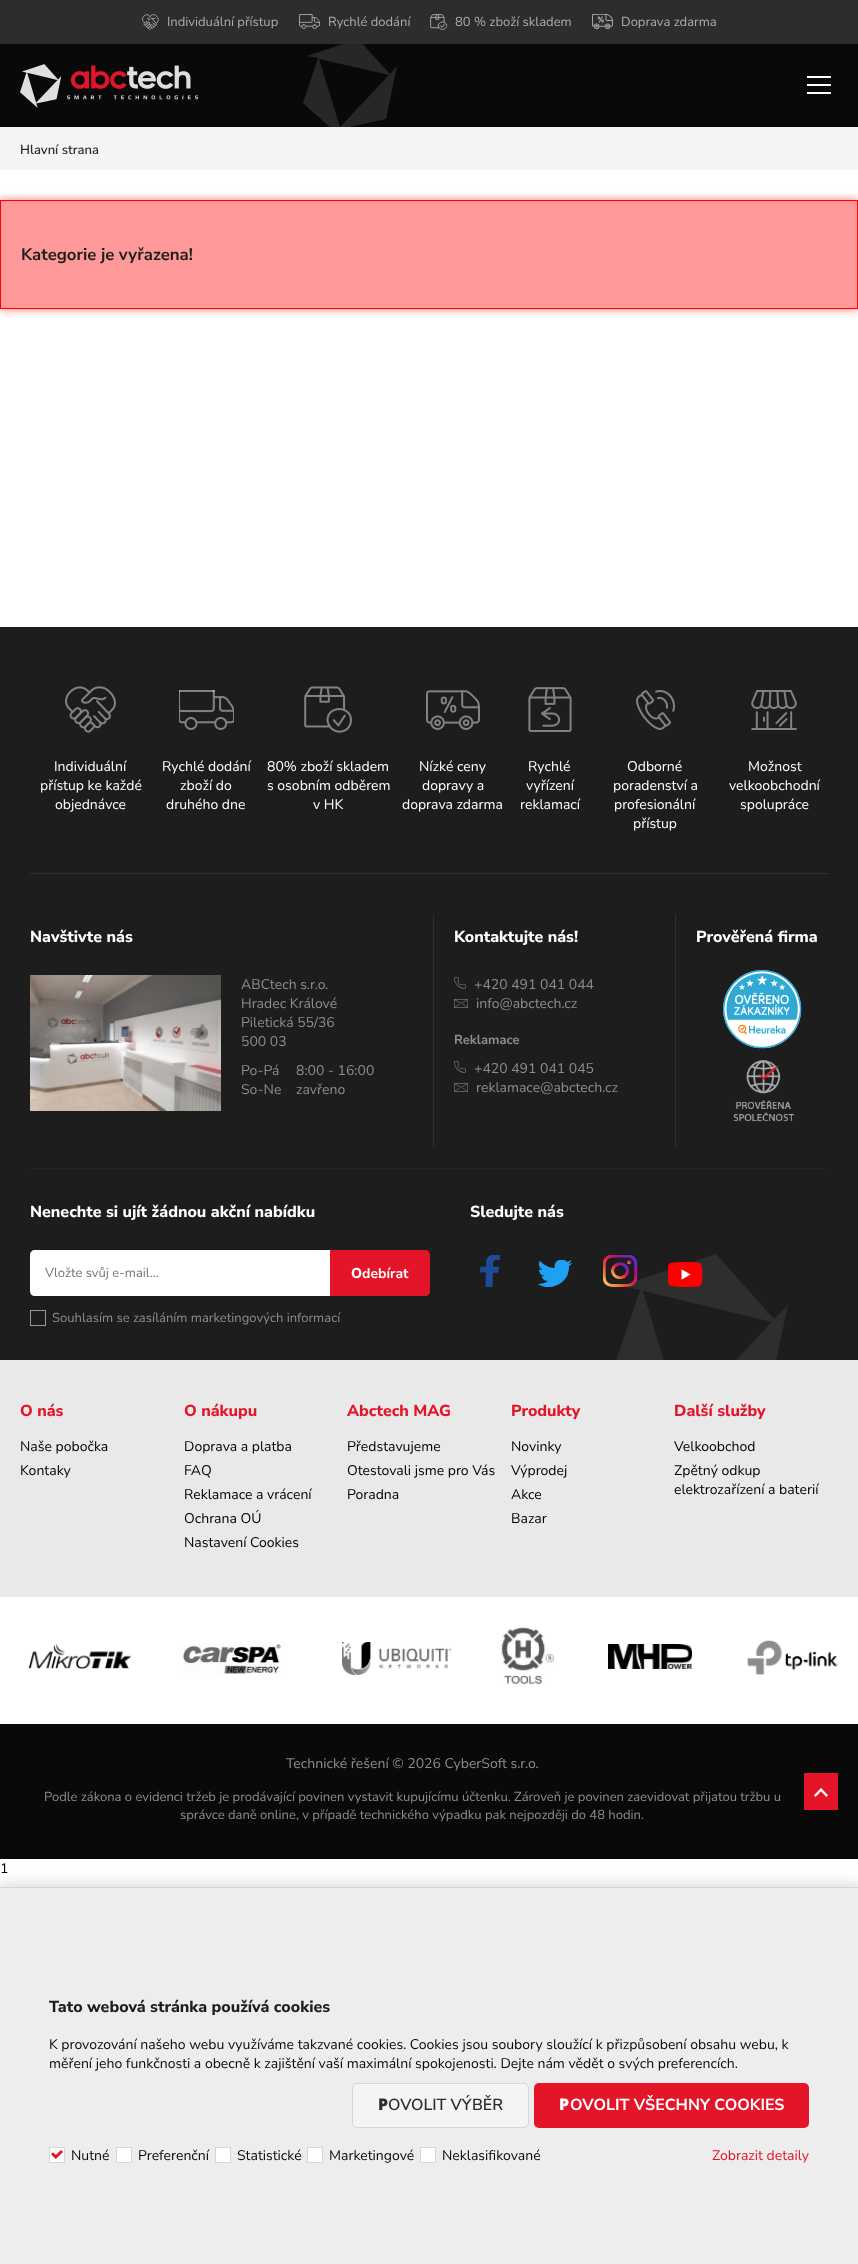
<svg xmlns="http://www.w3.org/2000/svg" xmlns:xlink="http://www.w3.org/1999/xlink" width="858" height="2264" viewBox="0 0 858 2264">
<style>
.cls-1{font:13px Nunito Sans;fill:#acacac}
.cls-2{font:600 13px Nunito Sans;fill:#2e2c2c}
.cls-3{font:bold 16.75px Nunito Sans;fill:#1d1d1d}
.cls-4{font:14px Nunito Sans;fill:#ffffff}
.cls-5{font:800 16px Nunito Sans;fill:#ffffff}
.cls-6{font:14px Nunito Sans;fill:#8d8d8d}
.cls-7{font:bold 13px Nunito Sans;fill:#8d8d8d}
.cls-8{font:13px Nunito Sans;fill:#757575}
.cls-9{font:bold 14px Noto Sans;fill:#ffffff}
.cls-10{font:bold 14px Nunito Sans;fill:#ffffff}
.cls-11{font:13px Nunito Sans;fill:#8d8d8d}
.cls-12{font:800 16px Nunito Sans;fill:#e41529}
.cls-13{font:14px Nunito Sans;fill:#000000}
.cls-14{font:800 16px Nunito Sans;fill:#1d1d1d}
.cls-15{font:14px Nunito Sans;fill:#090909}
.cls-16{font:900 16px Noto Sans;fill:#2e2c2c}
.cls-17{font:600 16px Nunito Sans;fill:#2e2c2c}
.cls-18{font:900 16px Noto Sans;fill:#ffffff}
.cls-19{font:bold 16px Nunito Sans;fill:#ffffff}
.cls-20{font:14px Nunito Sans;fill:#e41529}
</style>
<defs>
<clipPath id="clip1"><rect x="300" y="44" width="100" height="83"/></clipPath>
</defs>
<rect width="100%" height="100%" fill="#ffffff"/>
<rect fill="#090909" x="0" y="44" width="858" height="83"/>
<rect fill="#2e2c2c" x="0" y="0" width="858" height="44"/>
<image xlink:href="image0.png" x="142" y="14" width="17" height="16"/>
<image xlink:href="image1.png" x="299" y="14" width="21" height="15"/>
<image xlink:href="image2.png" x="430" y="14" width="17" height="16"/>
<image xlink:href="image3.png" x="592" y="14" width="21" height="15"/>
<g clip-path="url(#clip1)">
<path fill="#272727" fill-rule="evenodd" d="M340 129L343 139L303 103L318 58L307 56L358 39L390 74L397 66L386 119ZM389 75L319 59L340 127Z"/>
</g>
<image xlink:href="image4.png" x="20" y="64" width="178" height="44"/>
<rect fill="#ffffff" x="807" y="76" width="24" height="2"/>
<rect fill="#ffffff" x="807" y="84" width="24" height="2"/>
<rect fill="#ffffff" x="807" y="92" width="24" height="2"/>
<rect fill="#f4f4f4" x="0" y="127" width="858" height="43"/>
<rect fill="#ff0000" fill-opacity="0.6" filter="blur(4px)" x="0" y="200" width="858" height="109"/>
<rect fill="#ff9999" stroke="#ff0000" x="0.5" y="200.5" width="857" height="108"/>
<rect fill="#1d1d1d" x="0" y="627" width="858" height="733"/>
<path fill="#2e2e2e" fill-rule="evenodd" d="M682 1421L687 1440L612 1373L640 1290L620 1286L716 1254L774 1319L788 1305L767 1403ZM772 1322L643 1291L681 1418Z"/>
<rect fill="#2f2f2f" x="30" y="873" width="798" height="1"/>
<image xlink:href="image5.png" x="65" y="686" width="51" height="47"/>
<image xlink:href="image6.png" x="179" y="690" width="55" height="40"/>
<image xlink:href="image7.png" x="304" y="686" width="48" height="47"/>
<image xlink:href="image8.png" x="426" y="690" width="54" height="40"/>
<image xlink:href="image9.png" x="528" y="687" width="44" height="45"/>
<image xlink:href="image10.png" x="636" y="690" width="39" height="40"/>
<image xlink:href="image11.png" x="751" y="690" width="46" height="40"/>
<image xlink:href="image12.png" x="30" y="975" width="191" height="136"/>
<rect fill="#2f2f2f" x="433" y="914" width="1" height="234"/>
<image xlink:href="image13.png" x="454" y="977" width="12" height="12"/>
<image xlink:href="image14.png" x="454" y="999" width="14" height="9"/>
<image xlink:href="image13.png" x="454" y="1061" width="12" height="12"/>
<image xlink:href="image14.png" x="454" y="1083" width="14" height="9"/>
<rect fill="#2f2f2f" x="675" y="914" width="1" height="234"/>
<image xlink:href="image15.png" x="723" y="970" width="79" height="79"/>
<image xlink:href="image16.png" x="733" y="1060" width="62" height="62"/>
<rect fill="#252525" x="30" y="1168" width="798" height="1"/>
<path fill="#ffffff" d="M35 1250H330V1296H35C32 1296 30 1294 30 1291V1255C30 1252 32 1250 35 1250Z"/>
<path fill="#e41529" d="M330 1250H425C428 1250 430 1252 430 1255V1291C430 1294 428 1296 425 1296H330Z"/>
<rect fill="none" stroke="#999999" x="30.5" y="1310.5" width="15" height="15"/>
<image xlink:href="image17.png" x="480" y="1255" width="20" height="32"/>
<image xlink:href="image18.png" x="538" y="1260" width="35" height="27"/>
<image xlink:href="image19.png" x="603" y="1255" width="35" height="32"/>
<image xlink:href="image20.png" x="668" y="1262" width="35" height="25"/>
<rect fill="#e9e9e9" x="0" y="1360" width="858" height="237"/>
<image xlink:href="image21.png" x="28" y="1644" width="104" height="25"/>
<image xlink:href="image22.png" x="183" y="1644" width="98" height="30"/>
<image xlink:href="image23.png" x="342" y="1642" width="109" height="33"/>
<image xlink:href="image24.png" x="501" y="1627" width="53" height="57"/>
<image xlink:href="image25.png" x="608" y="1644" width="84" height="25"/>
<image xlink:href="image26.png" x="747" y="1640" width="91" height="35"/>
<rect fill="#090909" x="0" y="1724" width="858" height="135"/>
<rect fill="#e41529" x="804" y="1773" width="34" height="37"/>
<image xlink:href="image27.png" x="814" y="1788" width="14" height="9"/>
<rect fill="#d6d6d6" filter="blur(7px)" x="-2" y="1885" width="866" height="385"/>
<rect fill="#ededed" x="0" y="1888" width="858" height="376"/>
<rect fill="#d6d6d6" x="0" y="1887" width="858" height="1"/>
<rect fill="#f4f4f4" stroke="#d6d6d6" x="352.5" y="2083.5" width="176" height="44" rx="4.5"/>
<rect fill="#e41529" x="534" y="2083" width="275" height="45" rx="5"/>
<rect fill="#ffffff" stroke="#d6d6d6" x="49.5" y="2147.5" width="15" height="15"/>
<image xlink:href="image28.png" x="51" y="2150" width="12" height="9"/>
<rect fill="#ffffff" stroke="#d6d6d6" x="116.5" y="2147.5" width="15" height="15"/>
<rect fill="#ffffff" stroke="#d6d6d6" x="215.5" y="2147.5" width="15" height="15"/>
<rect fill="#ffffff" stroke="#d6d6d6" x="307.5" y="2147.5" width="15" height="15"/>
<rect fill="#ffffff" stroke="#d6d6d6" x="420.5" y="2147.5" width="15" height="15"/>
<text class="cls-1" x="167" y="26">Individuální přístup</text>
<text class="cls-1" x="328" y="26">Rychlé dodání</text>
<text class="cls-1" x="455" y="26">80 % zboží skladem</text>
<text class="cls-1" x="621" y="26">Doprava zdarma</text>
<text class="cls-2" x="20" y="154">Hlavní strana</text>
<text class="cls-3" x="21" y="260">Kategorie je vyřazena!</text>
<text class="cls-4" x="54" y="771">Individuální</text>
<text class="cls-4" x="40" y="790">přístup ke každé</text>
<text class="cls-4" x="55" y="809">objednávce</text>
<text class="cls-4" x="162" y="771">Rychlé dodání</text>
<text class="cls-4" x="180" y="790">zboží do</text>
<text class="cls-4" x="166" y="809">druhého dne</text>
<text class="cls-4"><tspan x="267" y="771">80% zboží skladem</tspan><tspan x="267" y="790">s osobním odběrem</tspan></text>
<text class="cls-4" x="313" y="809">v HK</text>
<text class="cls-4" x="419" y="771">Nízké ceny</text>
<text class="cls-4" x="422" y="790">dopravy a</text>
<text class="cls-4" x="402" y="809">doprava zdarma</text>
<text class="cls-4" x="528" y="771">Rychlé</text>
<text class="cls-4" x="526" y="790">vyřízení</text>
<text class="cls-4" x="520" y="809">reklamací</text>
<text class="cls-4" x="627" y="771">Odborné</text>
<text class="cls-4" x="613" y="790">poradenství a</text>
<text class="cls-4" x="614" y="809">profesionální</text>
<text class="cls-4" x="633" y="828">přístup</text>
<text class="cls-4" x="748" y="771">Možnost</text>
<text class="cls-4" x="729" y="790">velkoobchodní</text>
<text class="cls-4" x="740" y="809">spolupráce</text>
<text class="cls-5" x="30" y="942">Navštivte nás</text>
<text class="cls-6"><tspan x="241" y="989">ABCtech s.r.o.</tspan><tspan x="241" y="1008">Hradec Králové</tspan><tspan x="241" y="1027">Piletická 55/36</tspan><tspan x="241" y="1046">500 03</tspan></text>
<text class="cls-6" x="241" y="1075">Po-Pá</text>
<text class="cls-6" x="296" y="1075">8:00 - 16:00</text>
<text class="cls-6" x="241" y="1094">So-Ne</text>
<text class="cls-6" x="296" y="1094">zavřeno</text>
<text class="cls-5" x="454" y="942">Kontaktujte nás!</text>
<text class="cls-6" x="474" y="989">+420 491 041 044</text>
<text class="cls-6" x="476" y="1008">info@abctech.cz</text>
<text class="cls-7" x="454" y="1044">Reklamace</text>
<text class="cls-6" x="474" y="1073">+420 491 041 045</text>
<text class="cls-6" x="476" y="1092">reklamace@abctech.cz</text>
<text class="cls-5" x="696" y="942">Prověřená firma</text>
<text class="cls-5" x="30" y="1217">Nenechte si ujít žádnou akční nabídku</text>
<text class="cls-8" x="45" y="1277">Vložte svůj e-mail...</text>
<text class="cls-9" x="351" y="1278">O</text>
<text class="cls-10" x="362" y="1278">debírat</text>
<text class="cls-11" x="52" y="1322">Souhlasím se zasíláním marketingových informací</text>
<text class="cls-5" x="470" y="1217">Sledujte nás</text>
<text class="cls-12" x="20" y="1416">O nás</text>
<text class="cls-13"><tspan x="20" y="1451">Naše pobočka</tspan><tspan x="20" y="1475">Kontaky</tspan></text>
<text class="cls-12" x="184" y="1416">O nákupu</text>
<text class="cls-13"><tspan x="184" y="1451">Doprava a platba</tspan><tspan x="184" y="1475">FAQ</tspan><tspan x="184" y="1499">Reklamace a vrácení</tspan><tspan x="184" y="1523">Ochrana OÚ</tspan><tspan x="184" y="1547">Nastavení Cookies</tspan></text>
<text class="cls-12" x="347" y="1416">Abctech MAG</text>
<text class="cls-13"><tspan x="347" y="1451">Představujeme</tspan><tspan x="347" y="1475">Otestovali jsme pro Vás</tspan><tspan x="347" y="1499">Poradna</tspan></text>
<text class="cls-12" x="511" y="1416">Produkty</text>
<text class="cls-13"><tspan x="511" y="1451">Novinky</tspan><tspan x="511" y="1475">Výprodej</tspan><tspan x="511" y="1499">Akce</tspan><tspan x="511" y="1523">Bazar</tspan></text>
<text class="cls-12" x="674" y="1416">Další služby</text>
<text class="cls-13"><tspan x="674" y="1451">Velkoobchod</tspan><tspan x="674" y="1475">Zpětný odkup</tspan><tspan x="674" y="1494">elektrozařízení a baterií</tspan></text>
<text class="cls-6" x="286" y="1768">Technické řešení © 2026 CyberSoft s.r.o.</text>
<text class="cls-11" x="44" y="1801">Podle zákona o evidenci tržeb je prodávající povinen vystavit kupujícímu účtenku. Zároveň je povinen zaevidovat přijatou tržbu u</text>
<text class="cls-11" x="180" y="1819">správce daně online, v případě technického výpadku pak nejpozději do 48 hodin.</text>
<text class="cls-13" x="0" y="1873">1</text>
<text class="cls-14" x="49" y="2012">Tato webová stránka používá cookies</text>
<text class="cls-15"><tspan x="49" y="2049">K provozování našeho webu využíváme takzvané cookies. Cookies jsou soubory sloužící k přizpůsobení obsahu webu, k</tspan><tspan x="49" y="2068">měření jeho funkčnosti a obecně k zajištění vaší maximální spokojenosti. Dejte nám vědět o svých preferencích.</tspan></text>
<text class="cls-16" x="378" y="2110">P</text>
<text class="cls-17" x="388" y="2110">OVOLIT VÝBĚR</text>
<text class="cls-18" x="559" y="2110">P</text>
<text class="cls-19" x="570" y="2110">OVOLIT VŠECHNY COOKIES</text>
<text class="cls-15" x="71" y="2160">Nutné</text>
<text class="cls-15" x="138" y="2160">Preferenční</text>
<text class="cls-15" x="237" y="2160">Statistické</text>
<text class="cls-15" x="329" y="2160">Marketingové</text>
<text class="cls-15" x="442" y="2160">Neklasifikované</text>
<text class="cls-20" x="712" y="2160">Zobrazit detaily</text>
</svg>
